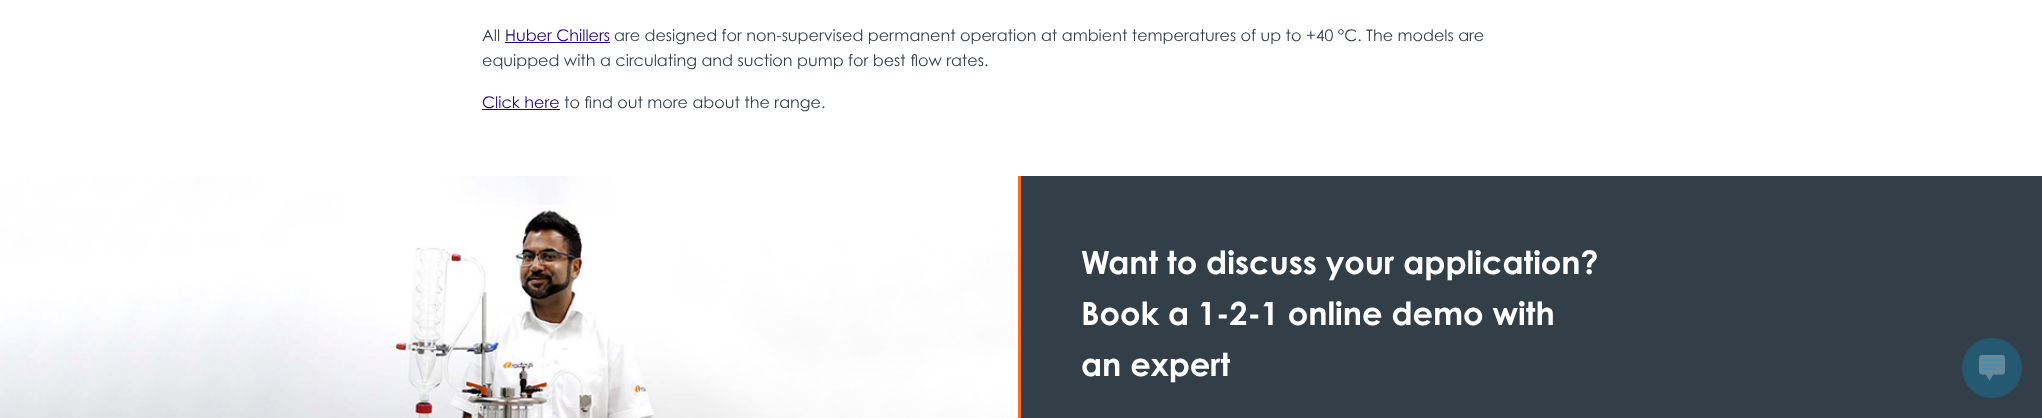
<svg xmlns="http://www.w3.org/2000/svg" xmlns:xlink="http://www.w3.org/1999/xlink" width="2042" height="418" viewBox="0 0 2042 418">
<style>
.cls-1{font:16px Century Gothic;fill:#333f48}
.cls-2{font:16px Century Gothic;fill:#240078}
.cls-3{font:bold 32px Century Gothic;fill:#ffffff}
</style>
<rect width="100%" height="100%" fill="#ffffff"/>
<rect fill="#240078" x="505" y="42" width="105" height="1"/>
<rect fill="#240078" x="482" y="109" width="78" height="1"/>
<rect fill="#333f48" x="1021" y="176" width="1021" height="242"/>
<rect fill="#ff6d22" x="1018" y="176" width="3" height="242"/>
<image xlink:href="image0.png" x="0" y="176" width="1018" height="242"/>
<circle fill="#255972" cx="1992" cy="368" r="30"/>
<image xlink:href="image1.png" x="1979" y="355" width="26" height="26"/>
<text class="cls-1" x="482" y="41">All</text>
<text class="cls-2" x="505" y="41">Huber Chillers</text>
<text class="cls-1" x="614" y="41">are designed for non-supervised permanent operation at ambient temperatures of up to +40 °C. The models are</text>
<text class="cls-1" x="482" y="66">equipped with a circulating and suction pump for best flow rates.</text>
<text class="cls-2" x="482" y="108">Click here</text>
<text class="cls-1" x="564" y="108">to find out more about the range.</text>
<text class="cls-3"><tspan x="1081" y="274">Want to discuss your application?</tspan><tspan x="1081" y="325">Book a 1-2-1 online demo with</tspan><tspan x="1081" y="376">an expert</tspan></text>
</svg>
